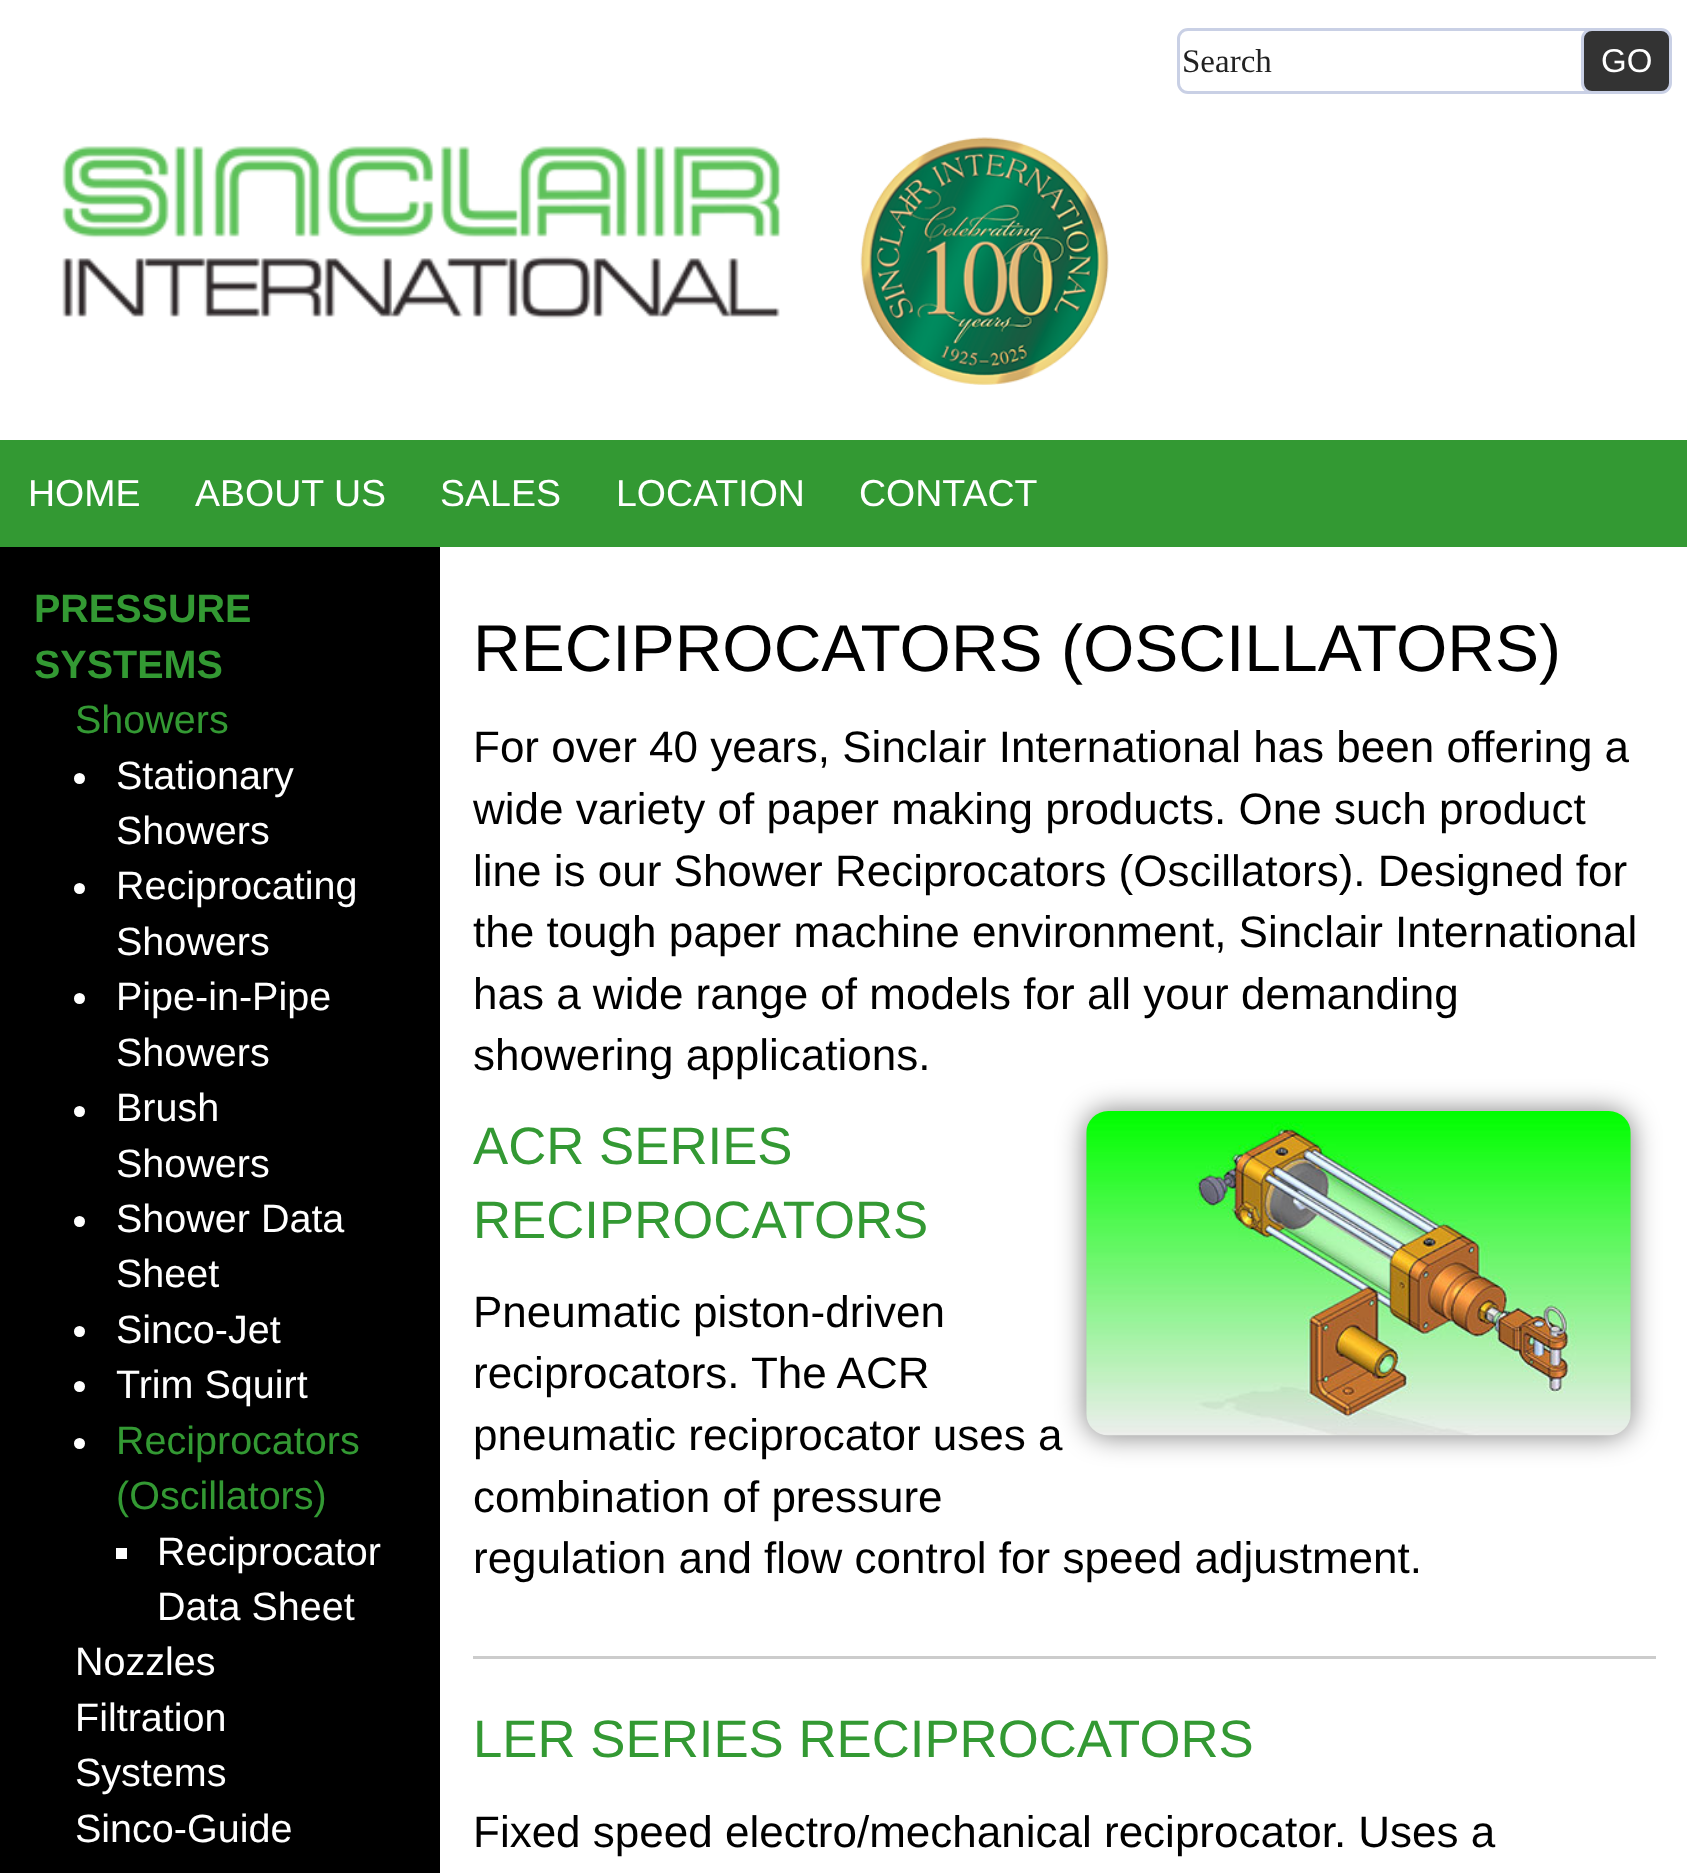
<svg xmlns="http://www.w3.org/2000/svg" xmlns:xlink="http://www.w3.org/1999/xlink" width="1687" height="1873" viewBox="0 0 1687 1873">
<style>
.cls-1{font:33px Liberation Serif;fill:#222222}
.cls-2{font:33px Liberation Sans;fill:#ffffff}
.cls-3{font:37.5px Liberation Sans;fill:#ffffff}
.cls-4{font:bold 39.5px Liberation Sans;fill:#339933}
.cls-5{font:39.5px Liberation Sans;fill:#339933}
.cls-6{font:39.5px Liberation Sans;fill:#ffffff}
.cls-7{font:66px Liberation Sans;fill:#000000}
.cls-8{font:44px Liberation Sans;fill:#000000}
.cls-9{font:52.75px Liberation Sans;fill:#339933}
</style>
<rect width="100%" height="100%" fill="#ffffff"/>
<rect fill="none" stroke="#c9d0e5" stroke-width="3" x="1178.5" y="29.5" width="421" height="63" rx="9.5"/>
<rect fill="#333333" stroke="#c9d0e5" stroke-width="3" x="1582.5" y="29.5" width="88" height="63" rx="9.5"/>
<image xlink:href="image0.png" x="62" y="146" width="719" height="173"/>
<image xlink:href="image1.png" x="860" y="137" width="249" height="248"/>
<rect fill="#339933" x="0" y="440" width="1687" height="107"/>
<rect fill="#000000" x="0" y="547" width="440" height="1326"/>
<circle fill="#ffffff" cx="79.5" cy="778.5" r="5.5"/>
<circle fill="#ffffff" cx="79.5" cy="888.5" r="5.5"/>
<circle fill="#ffffff" cx="79.5" cy="998.5" r="5.5"/>
<circle fill="#ffffff" cx="79.5" cy="1111.5" r="5.5"/>
<circle fill="#ffffff" cx="79.5" cy="1221.5" r="5.5"/>
<circle fill="#ffffff" cx="79.5" cy="1331.5" r="5.5"/>
<circle fill="#ffffff" cx="79.5" cy="1386.5" r="5.5"/>
<circle fill="#ffffff" cx="79.5" cy="1443.5" r="5.5"/>
<rect fill="#ffffff" x="116" y="1548" width="11" height="11"/>
<rect fill="#000000" fill-opacity="0.5" filter="blur(14px)" x="1086" y="1111" width="545" height="325" rx="22"/>
<image xlink:href="image2.png" x="1086" y="1111" width="545" height="325"/>
<rect fill="#cccccc" x="473" y="1656" width="1183" height="3"/>
<text class="cls-1" x="1182" y="72">Search</text>
<text class="cls-2" x="1601" y="72">GO</text>
<text class="cls-3" x="28" y="506">HOME</text>
<text class="cls-3" x="195" y="506">ABOUT US</text>
<text class="cls-3" x="440" y="506">SALES</text>
<text class="cls-3" x="616" y="506">LOCATION</text>
<text class="cls-3" x="859" y="506">CONTACT</text>
<text class="cls-4"><tspan x="34" y="622">PRESSURE</tspan><tspan x="34" y="678">SYSTEMS</tspan></text>
<text class="cls-5" x="75" y="733">Showers</text>
<text class="cls-6"><tspan x="116" y="789">Stationary</tspan><tspan x="116" y="844">Showers</tspan><tspan x="116" y="899">Reciprocating</tspan><tspan x="116" y="955">Showers</tspan><tspan x="116" y="1010">Pipe-in-Pipe</tspan><tspan x="116" y="1066">Showers</tspan><tspan x="116" y="1121">Brush</tspan><tspan x="116" y="1177">Showers</tspan><tspan x="116" y="1232">Shower Data</tspan><tspan x="116" y="1287">Sheet</tspan><tspan x="116" y="1343">Sinco-Jet</tspan><tspan x="116" y="1398">Trim Squirt</tspan></text>
<text class="cls-5"><tspan x="116" y="1454">Reciprocators</tspan><tspan x="116" y="1509">(Oscillators)</tspan></text>
<text class="cls-6"><tspan x="157" y="1565">Reciprocator</tspan><tspan x="157" y="1620">Data Sheet</tspan></text>
<text class="cls-6"><tspan x="75" y="1675">Nozzles</tspan><tspan x="75" y="1731">Filtration</tspan><tspan x="75" y="1786">Systems</tspan><tspan x="75" y="1842">Sinco-Guide</tspan></text>
<text class="cls-7" x="473" y="671">RECIPROCATORS (OSCILLATORS)</text>
<text class="cls-8"><tspan x="473" y="762">For over 40 years, Sinclair International has been offering a</tspan><tspan x="473" y="824">wide variety of paper making products. One such product</tspan><tspan x="473" y="886">line is our Shower Reciprocators (Oscillators). Designed for</tspan><tspan x="473" y="947">the tough paper machine environment, Sinclair International</tspan><tspan x="473" y="1009">has a wide range of models for all your demanding</tspan><tspan x="473" y="1070">showering applications.</tspan></text>
<text class="cls-9"><tspan x="473" y="1164">ACR SERIES</tspan><tspan x="473" y="1238">RECIPROCATORS</tspan></text>
<text class="cls-8"><tspan x="473" y="1327">Pneumatic piston-driven</tspan><tspan x="473" y="1388">reciprocators. The ACR</tspan><tspan x="473" y="1450">pneumatic reciprocator uses a</tspan><tspan x="473" y="1512">combination of pressure</tspan><tspan x="473" y="1573">regulation and flow control for speed adjustment.</tspan></text>
<text class="cls-9" x="473" y="1757">LER SERIES RECIPROCATORS</text>
<text class="cls-8" x="473" y="1847">Fixed speed electro/mechanical reciprocator. Uses a</text>
</svg>
